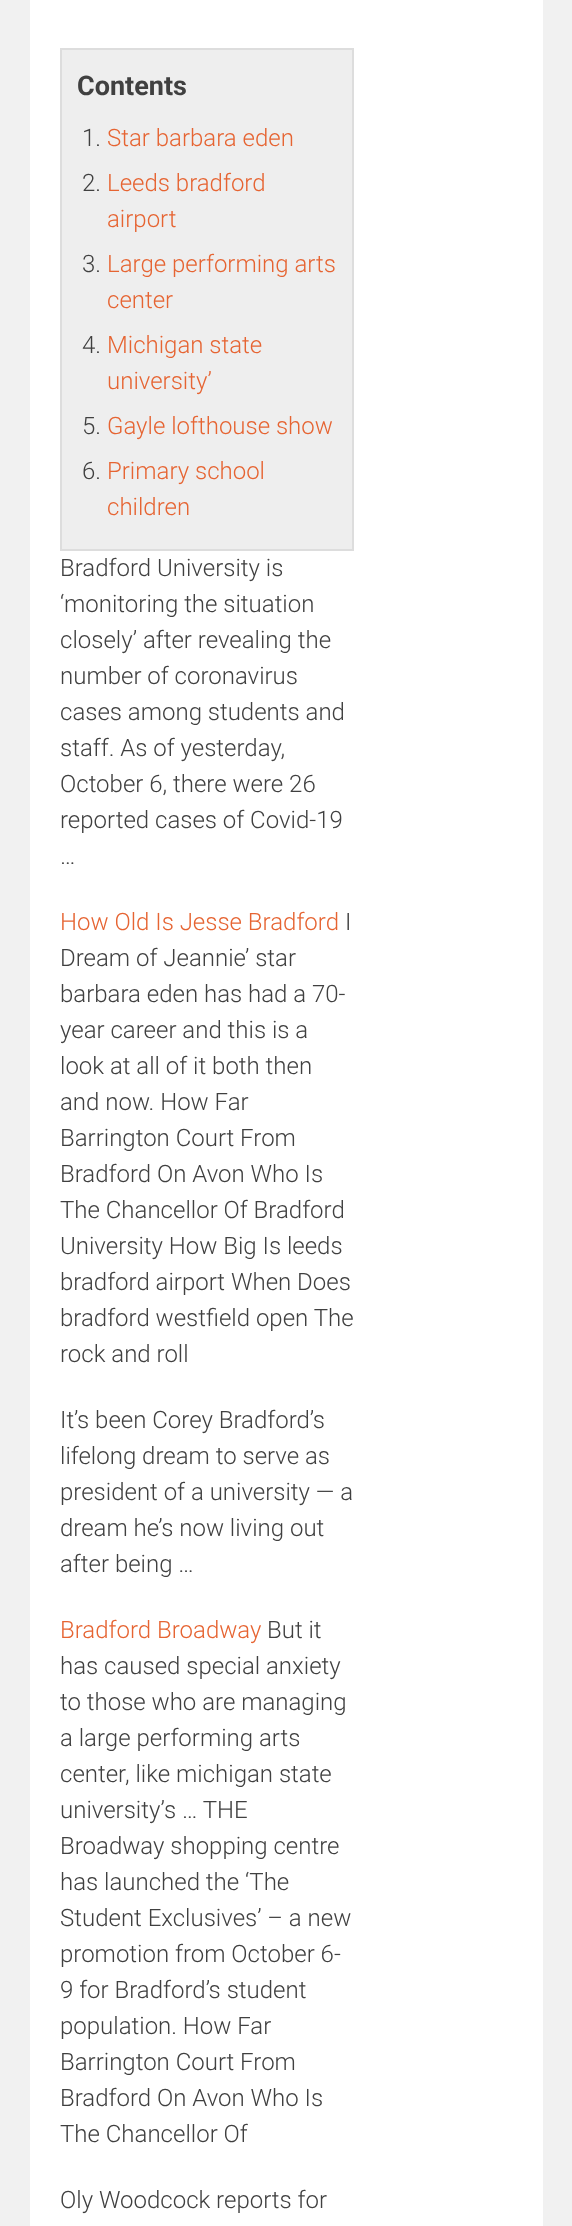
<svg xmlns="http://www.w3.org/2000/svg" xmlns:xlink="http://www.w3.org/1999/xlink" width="572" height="2226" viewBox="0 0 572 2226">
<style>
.cls-1{font:bold 27px Roboto;fill:#404040}
.cls-2{font:300 24px Roboto;fill:#404040}
.cls-3{font:300 24px Roboto;fill:#e66432}
</style>
<rect width="100%" height="100%" fill="#f1f1f1"/>
<rect fill="#ffffff" x="30" y="0" width="513" height="2226"/>
<rect fill="#eeeeee" stroke="#dddddd" stroke-width="2" x="61" y="49" width="292" height="501"/>
<text class="cls-1" x="77" y="95">Contents</text>
<text class="cls-2" x="82" y="146">1.</text>
<text class="cls-3" x="107" y="146">Star barbara eden</text>
<text class="cls-2" x="82" y="191">2.</text>
<text class="cls-3"><tspan x="107" y="191">Leeds bradford</tspan><tspan x="107" y="227">airport</tspan></text>
<text class="cls-2" x="82" y="272">3.</text>
<text class="cls-3"><tspan x="107" y="272">Large performing arts</tspan><tspan x="107" y="308">center</tspan></text>
<text class="cls-2" x="82" y="353">4.</text>
<text class="cls-3"><tspan x="107" y="353">Michigan state</tspan><tspan x="107" y="389">university’</tspan></text>
<text class="cls-2" x="82" y="434">5.</text>
<text class="cls-3" x="107" y="434">Gayle lofthouse show</text>
<text class="cls-2" x="82" y="479">6.</text>
<text class="cls-3"><tspan x="107" y="479">Primary school</tspan><tspan x="107" y="515">children</tspan></text>
<text class="cls-2"><tspan x="60" y="576">Bradford University is</tspan><tspan x="60" y="612">‘monitoring the situation</tspan><tspan x="60" y="648">closely’ after revealing the</tspan><tspan x="60" y="684">number of coronavirus</tspan><tspan x="60" y="720">cases among students and</tspan><tspan x="60" y="756">staff. As of yesterday,</tspan><tspan x="60" y="792">October 6, there were 26</tspan><tspan x="60" y="828">reported cases of Covid-19</tspan><tspan x="60" y="864">…</tspan></text>
<text class="cls-3" x="60" y="930">How Old Is Jesse Bradford</text>
<text class="cls-2" x="345" y="930">I</text>
<text class="cls-2"><tspan x="60" y="966">Dream of Jeannie’ star</tspan><tspan x="60" y="1002">barbara eden has had a 70-</tspan><tspan x="60" y="1038">year career and this is a</tspan><tspan x="60" y="1074">look at all of it both then</tspan><tspan x="60" y="1110">and now. How Far</tspan><tspan x="60" y="1146">Barrington Court From</tspan><tspan x="60" y="1182">Bradford On Avon Who Is</tspan><tspan x="60" y="1218">The Chancellor Of Bradford</tspan><tspan x="60" y="1254">University How Big Is leeds</tspan><tspan x="60" y="1290">bradford airport When Does</tspan><tspan x="60" y="1326">bradford westfield open The</tspan><tspan x="60" y="1362">rock and roll</tspan></text>
<text class="cls-2"><tspan x="60" y="1428">It’s been Corey Bradford’s</tspan><tspan x="60" y="1464">lifelong dream to serve as</tspan><tspan x="60" y="1500">president of a university — a</tspan><tspan x="60" y="1536">dream he’s now living out</tspan><tspan x="60" y="1572">after being …</tspan></text>
<text class="cls-3" x="60" y="1638">Bradford Broadway</text>
<text class="cls-2" x="267" y="1638">But it</text>
<text class="cls-2"><tspan x="60" y="1674">has caused special anxiety</tspan><tspan x="60" y="1710">to those who are managing</tspan><tspan x="60" y="1746">a large performing arts</tspan><tspan x="60" y="1782">center</tspan></text>
<text class="cls-2" x="125" y="1782">, like michigan state</text>
<text class="cls-2" x="60" y="1818">university’</text>
<text class="cls-2" x="164" y="1818">s … THE</text>
<text class="cls-2"><tspan x="60" y="1854">Broadway shopping centre</tspan><tspan x="60" y="1890">has launched the ‘The</tspan><tspan x="60" y="1926">Student Exclusives’ – a new</tspan><tspan x="60" y="1962">promotion from October 6-</tspan><tspan x="60" y="1998">9 for Bradford’s student</tspan><tspan x="60" y="2034">population. How Far</tspan><tspan x="60" y="2070">Barrington Court From</tspan><tspan x="60" y="2106">Bradford On Avon Who Is</tspan><tspan x="60" y="2142">The Chancellor Of</tspan></text>
<text class="cls-2" x="60" y="2208">Oly Woodcock reports for</text>
</svg>
